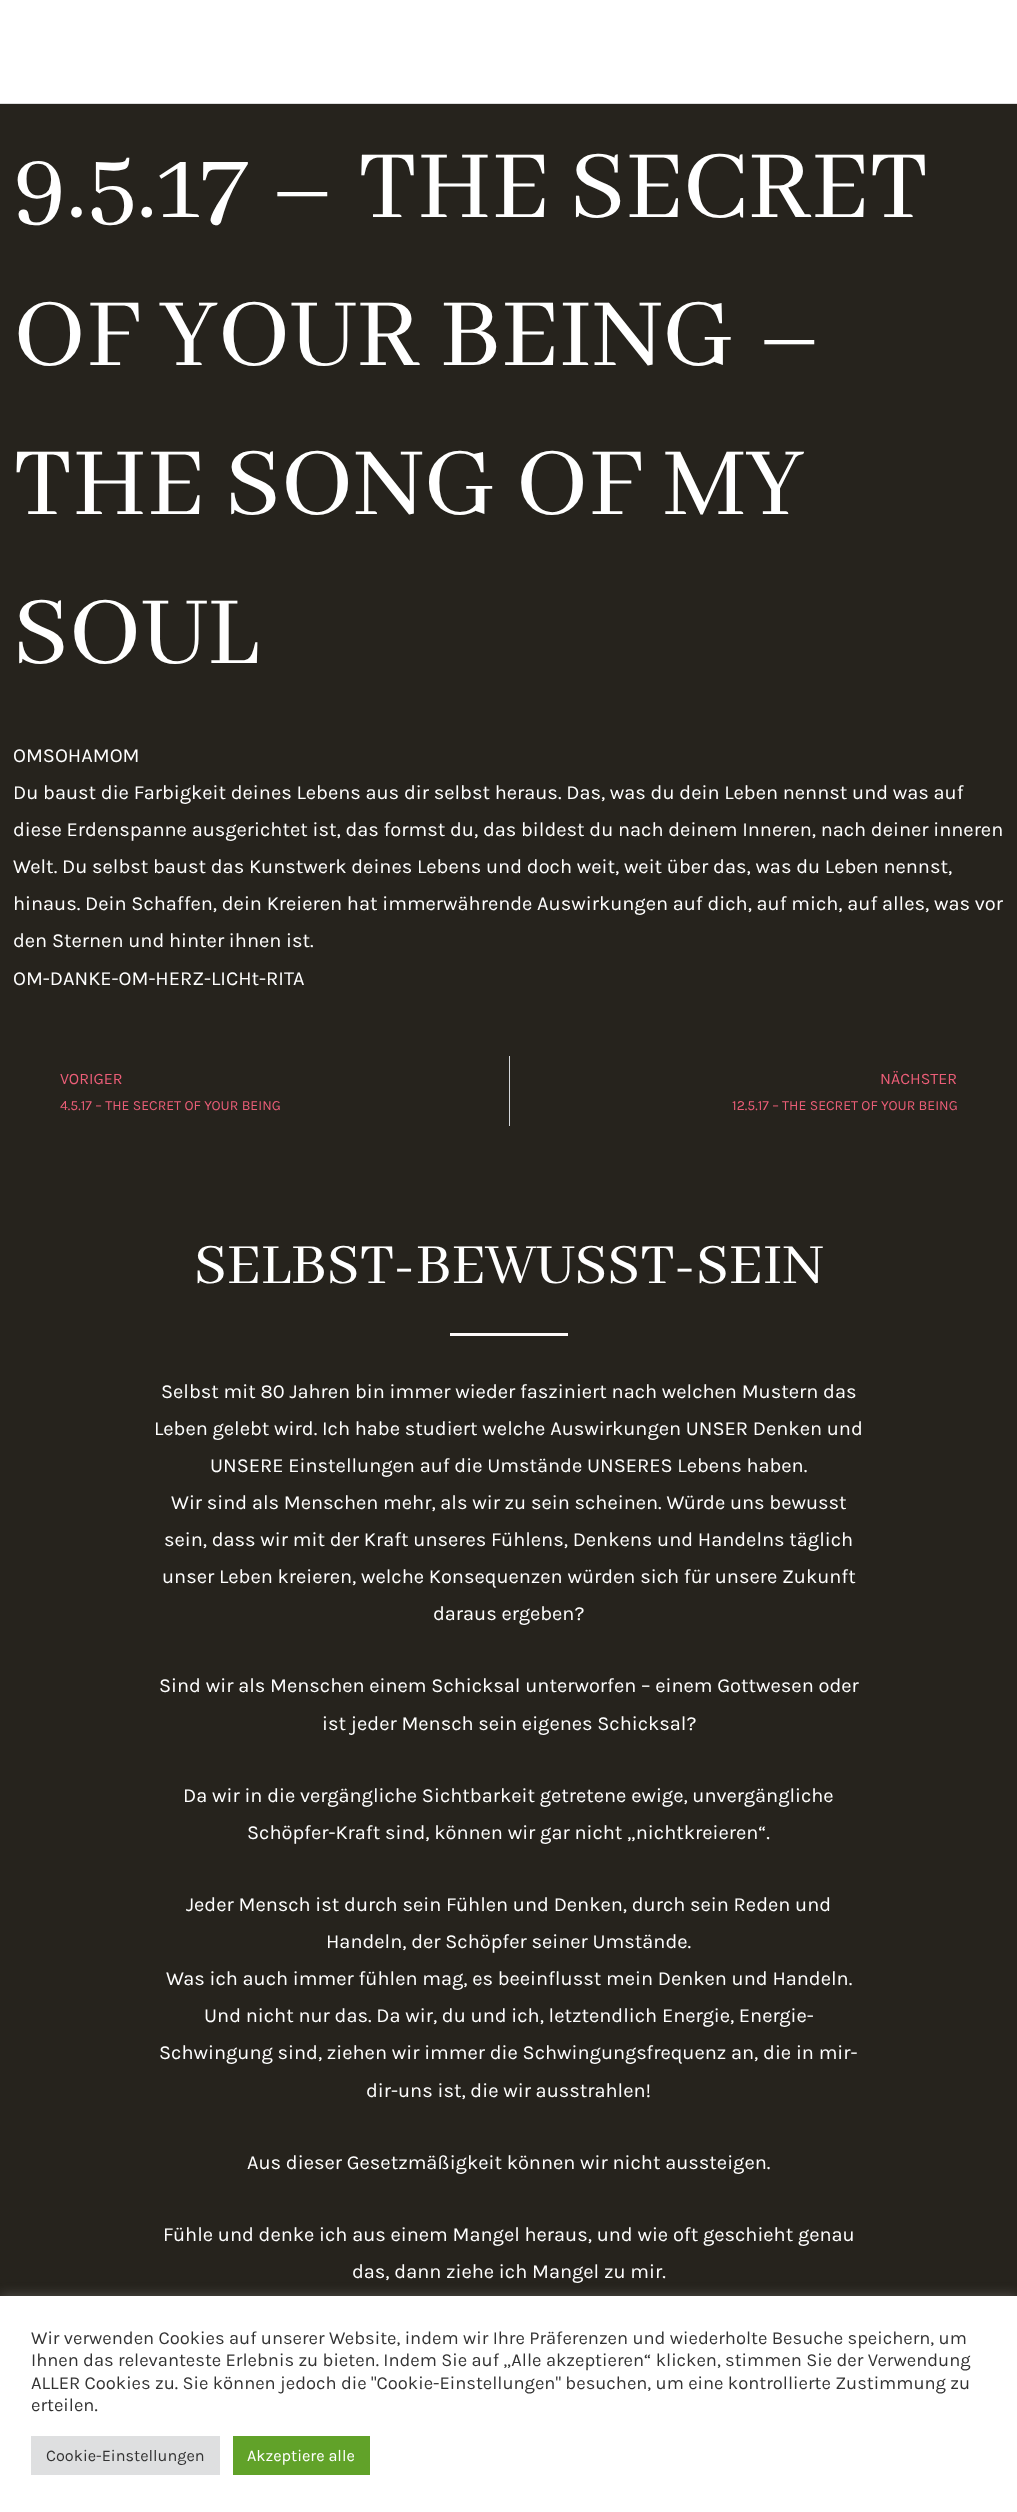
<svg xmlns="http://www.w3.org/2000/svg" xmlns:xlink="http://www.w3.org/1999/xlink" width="1017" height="2512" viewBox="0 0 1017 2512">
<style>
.cls-1{font:106.25px Abhaya Libre;fill:#ffffff}
.cls-2{font:20px Karla;fill:#ffffff}
.cls-3{font:16px Karla;fill:#ec5e78}
.cls-4{font:14px Karla;fill:#ec5e78}
.cls-5{font:62.5px Abhaya Libre;fill:#ffffff}
.cls-6{font:18.33px Karla;fill:#333333}
.cls-7{font:16.25px Karla;fill:#333333}
.cls-8{font:16.25px Karla;fill:#ffffff}
</style>
<rect width="100%" height="100%" fill="#26231d"/>
<rect fill="#ffffff" x="0" y="0" width="1017" height="103"/>
<rect fill="#dddddd" x="0" y="103" width="1017" height="1"/>
<rect fill="#d5d8dc" x="509" y="1056" width="1" height="70"/>
<rect fill="#fefafa" x="450" y="1333" width="118" height="3"/>
<rect fill="#acabab" fill-opacity="0.3" filter="blur(6px)" x="0" y="2295" width="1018" height="216"/>
<rect fill="#ffffff" x="0" y="2296" width="1017" height="216"/>
<rect fill="#dedfe0" x="31" y="2436" width="189" height="39"/>
<rect fill="#61a229" x="233" y="2436" width="137" height="39"/>
<text class="cls-1"><tspan x="13" y="217">9.5.17 – THE SECRET</tspan><tspan x="13" y="365">OF YOUR BEING –</tspan><tspan x="13" y="514">THE SONG OF MY</tspan><tspan x="13" y="663">SOUL</tspan></text>
<text class="cls-2"><tspan x="13" y="762">OMSOHAMOM</tspan><tspan x="13" y="799">Du baust die Farbigkeit deines Lebens aus dir selbst heraus. Das, was du dein Leben nennst und was auf</tspan><tspan x="13" y="836">diese Erdenspanne ausgerichtet ist, das formst du, das bildest du nach deinem Inneren, nach deiner inneren</tspan><tspan x="13" y="873">Welt. Du selbst baust das Kunstwerk deines Lebens und doch weit, weit über das, was du Leben nennst,</tspan><tspan x="13" y="910">hinaus. Dein Schaffen, dein Kreieren hat immerwährende Auswirkungen auf dich, auf mich, auf alles, was vor</tspan><tspan x="13" y="947">den Sternen und hinter ihnen ist.</tspan><tspan x="13" y="985">OM-DANKE-OM-HERZ-LICHt-RITA</tspan></text>
<text class="cls-3" x="60" y="1084">VORIGER</text>
<text class="cls-4" x="60" y="1110">4.5.17 – THE SECRET OF YOUR BEING</text>
<text class="cls-3" x="880" y="1084">NÄCHSTER</text>
<text class="cls-4" x="732" y="1110">12.5.17 – THE SECRET OF YOUR BEING</text>
<text class="cls-5" x="194" y="1283">SELBST-BEWUSST-SEIN</text>
<text class="cls-2" x="161" y="1398">Selbst mit 80 Jahren bin immer wieder fasziniert nach welchen Mustern das</text>
<text class="cls-2" x="154" y="1435">Leben gelebt wird. Ich habe studiert welche Auswirkungen UNSER Denken und</text>
<text class="cls-2" x="210" y="1472">UNSERE Einstellungen auf die Umstände UNSERES Lebens haben.</text>
<text class="cls-2" x="171" y="1509">Wir sind als Menschen mehr, als wir zu sein scheinen. Würde uns bewusst</text>
<text class="cls-2" x="164" y="1546">sein, dass wir mit der Kraft unseres Fühlens, Denkens und Handelns täglich</text>
<text class="cls-2" x="162" y="1583">unser Leben kreieren, welche Konsequenzen würden sich für unsere Zukunft</text>
<text class="cls-2" x="433" y="1620">daraus ergeben?</text>
<text class="cls-2" x="159" y="1692">Sind wir als Menschen einem Schicksal unterworfen – einem Gottwesen oder</text>
<text class="cls-2" x="322" y="1730">ist jeder Mensch sein eigenes Schicksal?</text>
<text class="cls-2" x="183" y="1802">Da wir in die vergängliche Sichtbarkeit getretene ewige, unvergängliche</text>
<text class="cls-2" x="247" y="1839">Schöpfer-Kraft sind, können wir gar nicht „nichtkreieren“.</text>
<text class="cls-2" x="186" y="1911">Jeder Mensch ist durch sein Fühlen und Denken, durch sein Reden und</text>
<text class="cls-2" x="326" y="1948">Handeln, der Schöpfer seiner Umstände.</text>
<text class="cls-2" x="166" y="1985">Was ich auch immer fühlen mag, es beeinflusst mein Denken und Handeln.</text>
<text class="cls-2" x="204" y="2022">Und nicht nur das. Da wir, du und ich, letztendlich Energie, Energie-</text>
<text class="cls-2" x="159" y="2059">Schwingung sind, ziehen wir immer die Schwingungsfrequenz an, die in mir-</text>
<text class="cls-2" x="366" y="2097">dir-uns ist, die wir ausstrahlen!</text>
<text class="cls-2" x="247" y="2169">Aus dieser Gesetzmäßigkeit können wir nicht aussteigen.</text>
<text class="cls-2" x="163" y="2241">Fühle und denke ich aus einem Mangel heraus, und wie oft geschieht genau</text>
<text class="cls-2" x="352" y="2278">das, dann ziehe ich Mangel zu mir.</text>
<text class="cls-6"><tspan x="31" y="2344">Wir verwenden Cookies auf unserer Website, indem wir Ihre Präferenzen und wiederholte Besuche speichern, um</tspan><tspan x="31" y="2366">Ihnen das relevanteste Erlebnis zu bieten. Indem Sie auf „Alle akzeptieren“ klicken, stimmen Sie der Verwendung</tspan><tspan x="31" y="2389">ALLER Cookies zu. Sie können jedoch die "Cookie-Einstellungen" besuchen, um eine kontrollierte Zustimmung zu</tspan><tspan x="31" y="2411">erteilen.</tspan></text>
<text class="cls-7" x="46" y="2461">Cookie-Einstellungen</text>
<text class="cls-8" x="247" y="2461">Akzeptiere alle</text>
</svg>
